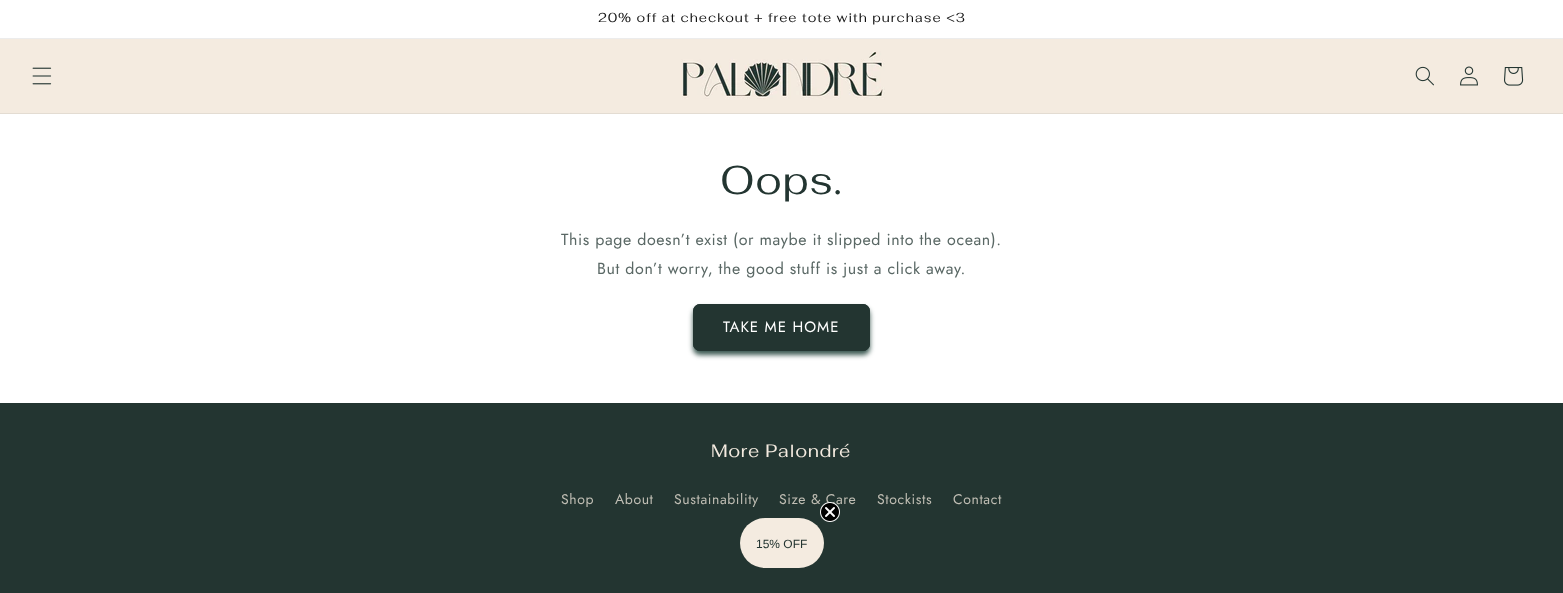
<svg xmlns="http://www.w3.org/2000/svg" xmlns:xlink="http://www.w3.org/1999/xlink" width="1563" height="593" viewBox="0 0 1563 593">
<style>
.cls-1{font:13px Fahkwang;letter-spacing:1px;fill:#121212}
.cls-2{font:40px Fahkwang;letter-spacing:0.6px;fill:#233531}
.cls-3{font:16px Jost;letter-spacing:0.6px;fill:#5a6865}
.cls-4{font:15px Jost;letter-spacing:1px;fill:#ffffff}
.cls-5{font:18px Fahkwang;letter-spacing:0.6px;fill:#f4ebe0}
.cls-6{font:14px Jost;letter-spacing:0.6px;fill:#c0beb4}
.cls-7{font:12px Liberation Sans;fill:#233531}
</style>
<rect width="100%" height="100%" fill="#ffffff"/>
<rect fill="#ececec" x="0" y="38" width="1563" height="1"/>
<rect fill="#f4ebe0" x="0" y="39" width="1563" height="74"/>
<rect fill="#e3dcd2" x="0" y="113" width="1563" height="1"/>
<image xlink:href="image0.png" x="32" y="67" width="20" height="18"/>
<image xlink:href="image1.png" x="681" y="51" width="204" height="49"/>
<image xlink:href="image2.png" x="1415" y="66" width="19" height="20"/>
<image xlink:href="image3.png" x="1460" y="66" width="18" height="20"/>
<image xlink:href="image4.png" x="1504" y="67" width="20" height="19"/>
<rect fill="#0b3027" fill-opacity="0.8" filter="blur(2.5px)" x="693" y="308" width="177" height="47" rx="7"/>
<rect fill="#233531" x="693" y="304" width="177" height="47" rx="7"/>
<rect fill="none" stroke="#233531" x="693.5" y="304.5" width="176" height="46" rx="6.5"/>
<rect fill="#233531" x="0" y="403" width="1563" height="190"/>
<rect fill="#f4ebe0" x="740" y="518" width="84" height="50" rx="25"/>
<text class="cls-1" x="598" y="22">20% off at checkout + free tote with purchase &lt;3</text>
<text class="cls-2" x="720" y="194">Oops.</text>
<text class="cls-3" x="561" y="245">This page doesn’t exist (or maybe it slipped into the ocean).</text>
<text class="cls-3" x="597" y="274">But don’t worry, the good stuff is just a click away.</text>
<text class="cls-4" x="723" y="332">TAKE ME HOME</text>
<text class="cls-5" x="711" y="457">More Palondré</text>
<text class="cls-6" x="561" y="504">Shop</text>
<text class="cls-6" x="615" y="504">About</text>
<text class="cls-6" x="674" y="504">Sustainability</text>
<text class="cls-6" x="779" y="504">Size &amp; Care</text>
<text class="cls-6" x="877" y="504">Stockists</text>
<text class="cls-6" x="953" y="504">Contact</text>
<image xlink:href="image5.png" x="820" y="502" width="20" height="20"/>
<text class="cls-7" x="756" y="548">15% OFF</text>
</svg>
